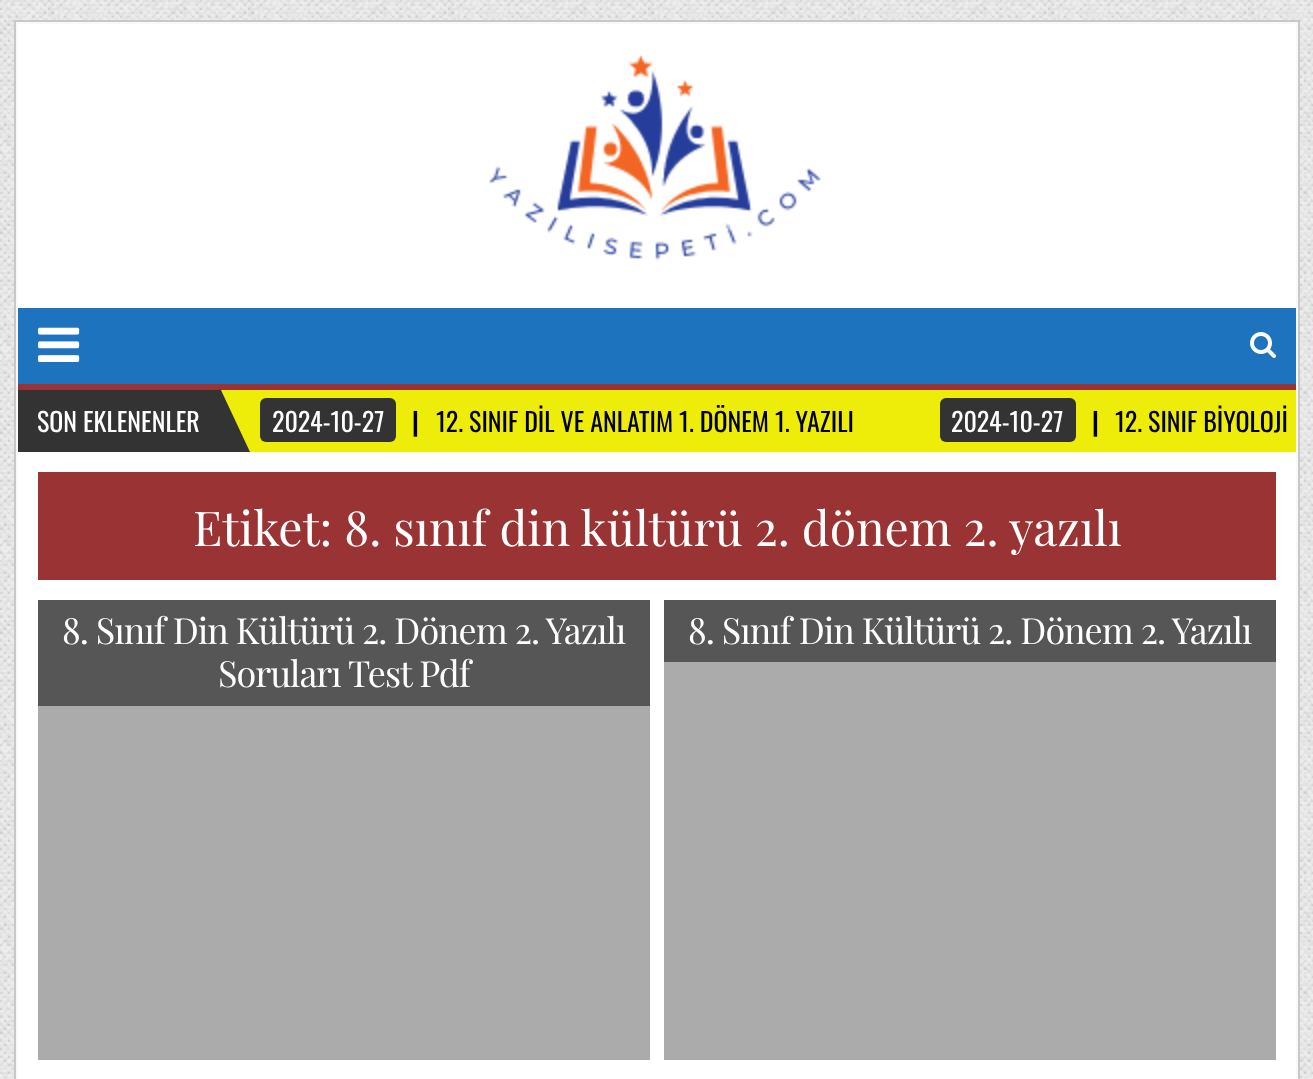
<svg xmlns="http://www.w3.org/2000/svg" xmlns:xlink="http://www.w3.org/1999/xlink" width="1313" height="1079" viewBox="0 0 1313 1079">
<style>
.cls-1{font:26px Oswald;fill:#ffffff}
.cls-2{font:bold 26px Oswald;fill:#000000}
.cls-3{font:26px Oswald;fill:#000000}
.cls-4{font:48px Playfair Display;fill:#ffffff}
.cls-5{font:36px Playfair Display;letter-spacing:-1px;fill:#ffffff}
</style>
<rect width="100%" height="100%" fill="#ffffff"/>
<image xlink:href="image0.png" x="0" y="0" width="1313" height="1079"/>
<rect fill="none" stroke="#c8c8c8" stroke-width="2" x="15" y="21" width="1284" height="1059"/>
<rect fill="none" stroke="#f9f9f9" stroke-width="2" x="17" y="23" width="1280" height="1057"/>
<rect fill="#ffffff" x="18" y="24" width="1278" height="284"/>
<image xlink:href="image1.png" x="489" y="55" width="332" height="206"/>
<rect fill="#1e73be" x="18" y="308" width="1278" height="76"/>
<rect fill="#9a3334" x="18" y="384" width="1278" height="6"/>
<image xlink:href="image2.png" x="38" y="327" width="42" height="35"/>
<image xlink:href="image3.png" x="1250" y="332" width="26" height="26"/>
<rect fill="#eded09" x="221" y="390" width="1075" height="62"/>
<rect fill="#333333" x="18" y="390" width="202" height="62"/>
<path fill="#333333" d="M220 452V388L250 452Z"/>
<rect fill="#333333" x="260" y="398" width="136" height="44" rx="6"/>
<rect fill="#333333" x="940" y="398" width="136" height="44" rx="6"/>
<rect fill="#ffffff" x="18" y="452" width="1278" height="627"/>
<rect fill="#9a3334" x="38" y="472" width="1238" height="108"/>
<rect fill="#565656" x="38" y="600" width="612" height="106"/>
<rect fill="#ababab" x="38" y="706" width="612" height="354"/>
<rect fill="#565656" x="664" y="600" width="612" height="62"/>
<rect fill="#ababab" x="664" y="662" width="612" height="398"/>
<text class="cls-1" x="37" y="432">SON EKLENENLER</text>
<text class="cls-1" x="272" y="432">2024-10-27</text>
<text class="cls-2" x="412" y="432">|</text>
<text class="cls-3" x="436" y="432">12. SINIF DİL VE ANLATIM 1. DÖNEM 1. YAZILI</text>
<text class="cls-1" x="951" y="432">2024-10-27</text>
<text class="cls-2" x="1092" y="432">|</text>
<text class="cls-3" x="1115" y="432">12. SINIF BİYOLOJİ</text>
<text class="cls-4" x="193" y="546">Etiket: 8. sınıf din kültürü 2. dönem 2. yazılı</text>
<text class="cls-5" x="62" y="644">8. Sınıf Din Kültürü 2. Dönem 2. Yazılı</text>
<text class="cls-5" x="218" y="687">Soruları Test Pdf</text>
<text class="cls-5" x="688" y="644">8. Sınıf Din Kültürü 2. Dönem 2. Yazılı</text>
</svg>
